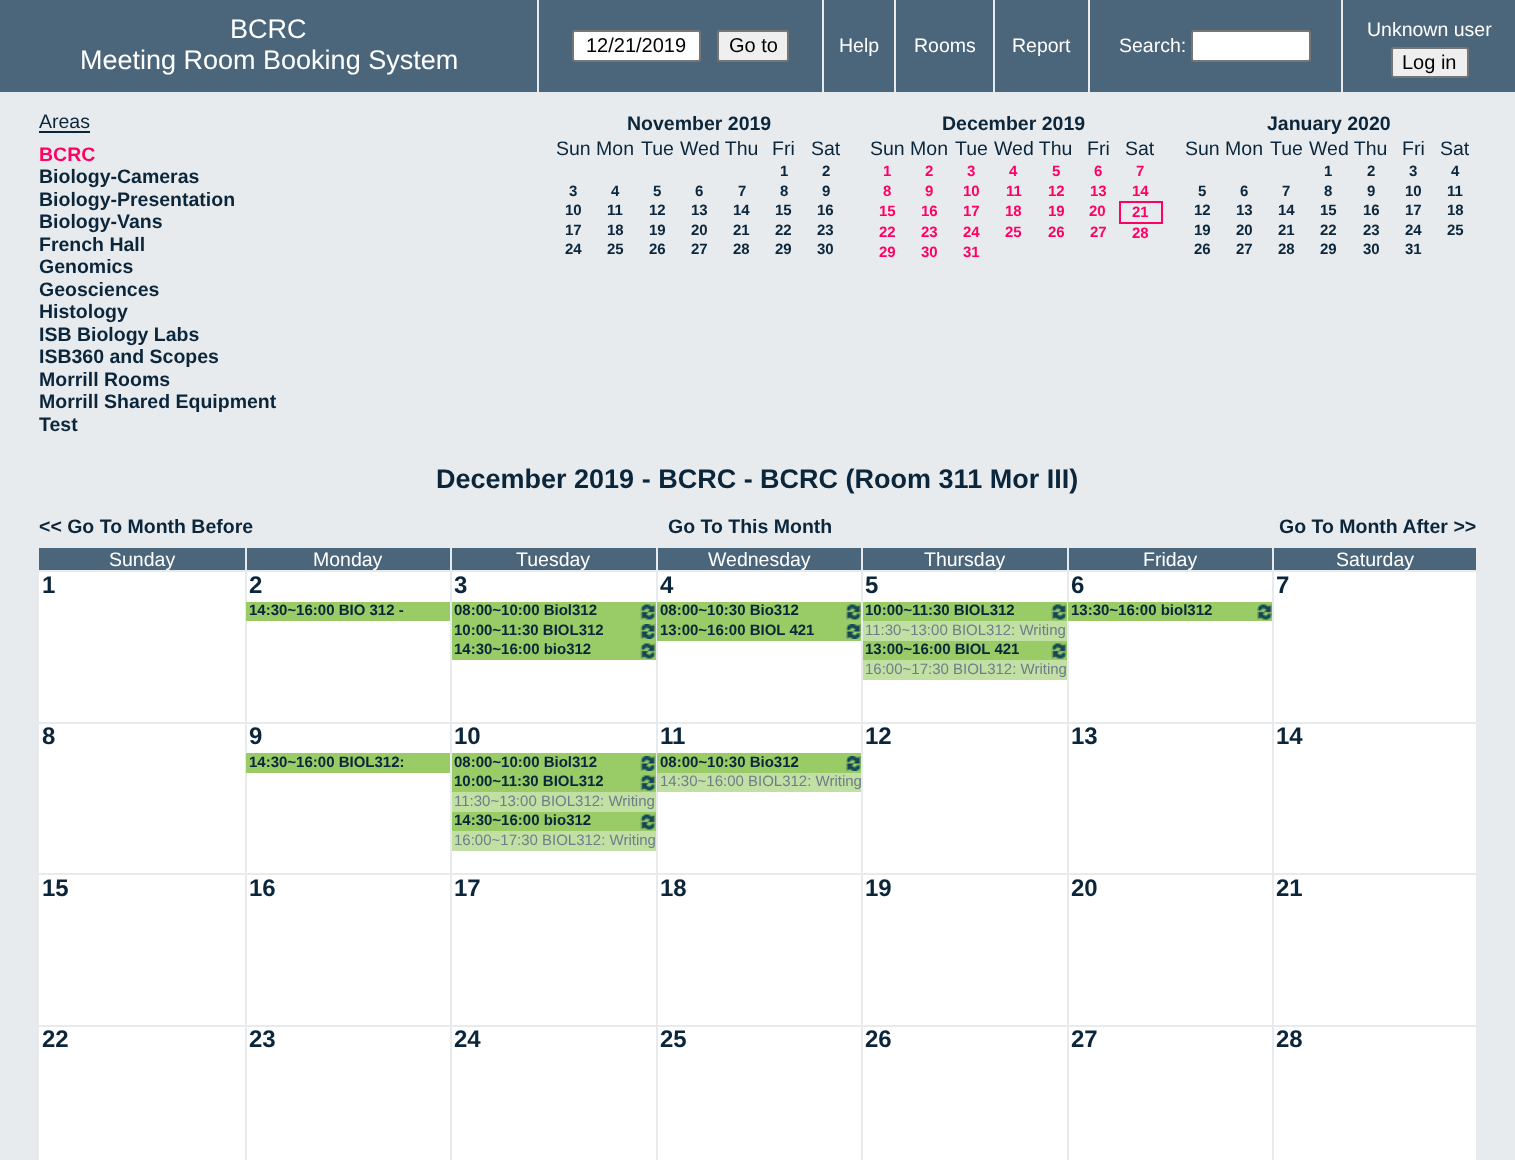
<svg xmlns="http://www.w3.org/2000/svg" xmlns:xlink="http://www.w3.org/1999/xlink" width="1515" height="1160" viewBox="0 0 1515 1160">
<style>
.cls-1{font:27px Liberation Sans;fill:#ffffff}
.cls-2{font:20px Liberation Sans;fill:#000000}
.cls-3{font:19.5px Liberation Sans;fill:#ffffff}
.cls-4{font:19.5px Liberation Sans;fill:#0b263b}
.cls-5{font:bold 19.5px Liberation Sans;fill:#ff0066}
.cls-6{font:bold 19.5px Liberation Sans;fill:#0b263b}
.cls-7{font:bold 15px Liberation Sans;fill:#0b263b}
.cls-8{font:bold 15px Liberation Sans;fill:#ff0066}
.cls-9{font:bold 27px Liberation Sans;fill:#0b263b}
.cls-10{font:bold 24px Liberation Sans;fill:#0b263b}
.cls-11{font:15px Liberation Sans;fill:#6d7d89}
</style>
<rect width="100%" height="100%" fill="#e7ebee"/>
<rect fill="#4b667b" x="0" y="0" width="1515" height="92"/>
<rect fill="#e7ebee" x="537" y="0" width="2" height="92"/>
<rect fill="#ffffff" stroke="#767676" stroke-width="2" x="573" y="31" width="127" height="30" rx="2"/>
<rect fill="#efefef" stroke="#767676" stroke-width="2" x="718" y="31" width="70" height="30" rx="2"/>
<rect fill="#e7ebee" x="822" y="0" width="2" height="92"/>
<rect fill="#e7ebee" x="894" y="0" width="2" height="92"/>
<rect fill="#e7ebee" x="993" y="0" width="2" height="92"/>
<rect fill="#e7ebee" x="1088" y="0" width="2" height="92"/>
<rect fill="#ffffff" stroke="#767676" stroke-width="2" x="1192" y="31" width="118" height="30" rx="2"/>
<rect fill="#e7ebee" x="1341" y="0" width="2" height="92"/>
<rect fill="#efefef" stroke="#767676" stroke-width="2" x="1392" y="48" width="76" height="29" rx="2"/>
<rect fill="#0b263b" x="39" y="131" width="51" height="2"/>
<rect fill="#ff0066" x="1119" y="201" width="44" height="2"/>
<rect fill="#ff0066" x="1161" y="201" width="2" height="23"/>
<rect fill="#ff0066" x="1119" y="222" width="44" height="2"/>
<rect fill="#ff0066" x="1119" y="201" width="2" height="23"/>
<rect fill="#4b667b" x="39" y="548" width="206" height="22"/>
<rect fill="#4b667b" x="247" y="548" width="203" height="22"/>
<rect fill="#4b667b" x="452" y="548" width="204" height="22"/>
<rect fill="#4b667b" x="658" y="548" width="203" height="22"/>
<rect fill="#4b667b" x="863" y="548" width="204" height="22"/>
<rect fill="#4b667b" x="1069" y="548" width="203" height="22"/>
<rect fill="#4b667b" x="1274" y="548" width="202" height="22"/>
<rect fill="#ffffff" x="39" y="572" width="206" height="150"/>
<rect fill="#ffffff" x="247" y="572" width="203" height="150"/>
<rect fill="#99cc66" x="246" y="602" width="204" height="19"/>
<rect fill="#ffffff" x="452" y="572" width="204" height="150"/>
<rect fill="#99cc66" x="452" y="602" width="204" height="58"/>
<image xlink:href="image0.png" x="640" y="604" width="16" height="16"/>
<image xlink:href="image1.png" x="640" y="624" width="16" height="15"/>
<image xlink:href="image0.png" x="640" y="643" width="16" height="16"/>
<rect fill="#ffffff" x="658" y="572" width="203" height="150"/>
<rect fill="#99cc66" x="657" y="602" width="204" height="39"/>
<image xlink:href="image2.png" x="846" y="604" width="15" height="16"/>
<image xlink:href="image3.png" x="846" y="624" width="15" height="15"/>
<rect fill="#ffffff" x="863" y="572" width="204" height="150"/>
<rect fill="#99cc66" x="863" y="602" width="204" height="19"/>
<image xlink:href="image0.png" x="1051" y="604" width="16" height="16"/>
<rect fill="#c2e0a3" x="863" y="621" width="204" height="20"/>
<rect fill="#99cc66" x="863" y="641" width="204" height="19"/>
<image xlink:href="image0.png" x="1051" y="643" width="16" height="16"/>
<rect fill="#c2e0a3" x="863" y="660" width="204" height="20"/>
<rect fill="#ffffff" x="1069" y="572" width="203" height="150"/>
<rect fill="#99cc66" x="1068" y="602" width="204" height="19"/>
<image xlink:href="image4.png" x="1257" y="604" width="15" height="16"/>
<rect fill="#ffffff" x="1274" y="572" width="202" height="150"/>
<rect fill="#ffffff" x="39" y="724" width="206" height="149"/>
<rect fill="#ffffff" x="247" y="724" width="203" height="149"/>
<rect fill="#99cc66" x="246" y="753" width="204" height="20"/>
<rect fill="#ffffff" x="452" y="724" width="204" height="149"/>
<rect fill="#99cc66" x="452" y="753" width="204" height="39"/>
<image xlink:href="image1.png" x="640" y="756" width="16" height="15"/>
<image xlink:href="image0.png" x="640" y="775" width="16" height="16"/>
<rect fill="#c2e0a3" x="452" y="792" width="204" height="20"/>
<rect fill="#99cc66" x="452" y="812" width="204" height="19"/>
<image xlink:href="image0.png" x="640" y="814" width="16" height="16"/>
<rect fill="#c2e0a3" x="452" y="831" width="204" height="20"/>
<rect fill="#ffffff" x="658" y="724" width="203" height="149"/>
<rect fill="#c2e0a3" x="658" y="773" width="203" height="19"/>
<rect fill="#b8d89c" x="657" y="773" width="1" height="19"/>
<rect fill="#99cc66" x="657" y="753" width="204" height="20"/>
<image xlink:href="image3.png" x="846" y="756" width="15" height="15"/>
<rect fill="#ffffff" x="863" y="724" width="204" height="149"/>
<rect fill="#ffffff" x="1069" y="724" width="203" height="149"/>
<rect fill="#ffffff" x="1274" y="724" width="202" height="149"/>
<rect fill="#ffffff" x="39" y="875" width="206" height="150"/>
<rect fill="#ffffff" x="247" y="875" width="203" height="150"/>
<rect fill="#ffffff" x="452" y="875" width="204" height="150"/>
<rect fill="#ffffff" x="658" y="875" width="203" height="150"/>
<rect fill="#ffffff" x="863" y="875" width="204" height="150"/>
<rect fill="#ffffff" x="1069" y="875" width="203" height="150"/>
<rect fill="#ffffff" x="1274" y="875" width="202" height="150"/>
<rect fill="#ffffff" x="39" y="1027" width="206" height="133"/>
<rect fill="#ffffff" x="247" y="1027" width="203" height="133"/>
<rect fill="#ffffff" x="452" y="1027" width="204" height="133"/>
<rect fill="#ffffff" x="658" y="1027" width="203" height="133"/>
<rect fill="#ffffff" x="863" y="1027" width="204" height="133"/>
<rect fill="#ffffff" x="1069" y="1027" width="203" height="133"/>
<rect fill="#ffffff" x="1274" y="1027" width="202" height="133"/>
<text class="cls-1" x="230" y="38">BCRC</text>
<text class="cls-1" x="80" y="69">Meeting Room Booking System</text>
<text class="cls-2" x="586" y="52">12/21/2019</text>
<text class="cls-2" x="729" y="52">Go to</text>
<text class="cls-3" x="839" y="52">Help</text>
<text class="cls-3" x="914" y="52">Rooms</text>
<text class="cls-3" x="1012" y="52">Report</text>
<text class="cls-3" x="1119" y="52">Search:</text>
<text class="cls-3" x="1367" y="36">Unknown user</text>
<text class="cls-2" x="1402" y="69">Log in</text>
<text class="cls-4" x="39" y="128">Areas</text>
<text class="cls-5" x="39" y="161">BCRC</text>
<text class="cls-6"><tspan x="39" y="183">Biology-Cameras</tspan><tspan x="39" y="206">Biology-Presentation</tspan><tspan x="39" y="228">Biology-Vans</tspan><tspan x="39" y="251">French Hall</tspan><tspan x="39" y="273">Genomics</tspan><tspan x="39" y="296">Geosciences</tspan><tspan x="39" y="318">Histology</tspan><tspan x="39" y="341">ISB Biology Labs</tspan><tspan x="39" y="363">ISB360 and Scopes</tspan><tspan x="39" y="386">Morrill Rooms</tspan><tspan x="39" y="408">Morrill Shared Equipment</tspan><tspan x="39" y="431">Test</tspan></text>
<text class="cls-6" x="627" y="130">November 2019</text>
<text class="cls-4" x="556" y="155">Sun Mon</text>
<text class="cls-4" x="641" y="155">Tue</text>
<text class="cls-4" x="680" y="155">Wed Thu</text>
<text class="cls-4" x="772" y="155">Fri</text>
<text class="cls-4" x="811" y="155">Sat</text>
<text class="cls-7" x="780" y="176">1</text>
<text class="cls-7" x="822" y="176">2</text>
<text class="cls-7" x="569" y="196">3</text>
<text class="cls-7" x="611" y="196">4</text>
<text class="cls-7" x="653" y="196">5</text>
<text class="cls-7" x="695" y="196">6</text>
<text class="cls-7" x="738" y="196">7</text>
<text class="cls-7" x="780" y="196">8</text>
<text class="cls-7" x="822" y="196">9</text>
<text class="cls-7" x="565" y="215">10</text>
<text class="cls-7" x="607" y="215">11</text>
<text class="cls-7" x="649" y="215">12</text>
<text class="cls-7" x="691" y="215">13</text>
<text class="cls-7" x="733" y="215">14</text>
<text class="cls-7" x="775" y="215">15</text>
<text class="cls-7" x="817" y="215">16</text>
<text class="cls-7" x="565" y="235">17</text>
<text class="cls-7" x="607" y="235">18</text>
<text class="cls-7" x="649" y="235">19</text>
<text class="cls-7" x="691" y="235">20</text>
<text class="cls-7" x="733" y="235">21</text>
<text class="cls-7" x="775" y="235">22</text>
<text class="cls-7" x="817" y="235">23</text>
<text class="cls-7" x="565" y="254">24</text>
<text class="cls-7" x="607" y="254">25</text>
<text class="cls-7" x="649" y="254">26</text>
<text class="cls-7" x="691" y="254">27</text>
<text class="cls-7" x="733" y="254">28</text>
<text class="cls-7" x="775" y="254">29</text>
<text class="cls-7" x="817" y="254">30</text>
<text class="cls-6" x="942" y="130">December 2019</text>
<text class="cls-4" x="870" y="155">Sun Mon</text>
<text class="cls-4" x="955" y="155">Tue</text>
<text class="cls-4" x="994" y="155">Wed Thu</text>
<text class="cls-4" x="1087" y="155">Fri</text>
<text class="cls-4" x="1125" y="155">Sat</text>
<text class="cls-8" x="883" y="176">1</text>
<text class="cls-8" x="925" y="176">2</text>
<text class="cls-8" x="967" y="176">3</text>
<text class="cls-8" x="1009" y="176">4</text>
<text class="cls-8" x="1052" y="176">5</text>
<text class="cls-8" x="1094" y="176">6</text>
<text class="cls-8" x="1136" y="176">7</text>
<text class="cls-8" x="883" y="196">8</text>
<text class="cls-8" x="925" y="196">9</text>
<text class="cls-8" x="963" y="196">10</text>
<text class="cls-8" x="1006" y="196">11</text>
<text class="cls-8" x="1048" y="196">12</text>
<text class="cls-8" x="1090" y="196">13</text>
<text class="cls-8" x="1132" y="196">14</text>
<text class="cls-8" x="879" y="216">15</text>
<text class="cls-8" x="921" y="216">16</text>
<text class="cls-8" x="963" y="216">17</text>
<text class="cls-8" x="1005" y="216">18</text>
<text class="cls-8" x="1048" y="216">19</text>
<text class="cls-8" x="1089" y="216">20</text>
<text class="cls-8" x="1132" y="217">21</text>
<text class="cls-8" x="879" y="237">22</text>
<text class="cls-8" x="921" y="237">23</text>
<text class="cls-8" x="963" y="237">24</text>
<text class="cls-8" x="1005" y="237">25</text>
<text class="cls-8" x="1048" y="237">26</text>
<text class="cls-8" x="1090" y="237">27</text>
<text class="cls-8" x="1132" y="238">28</text>
<text class="cls-8" x="879" y="257">29</text>
<text class="cls-8" x="921" y="257">30</text>
<text class="cls-8" x="963" y="257">31</text>
<text class="cls-6" x="1267" y="130">January 2020</text>
<text class="cls-4" x="1185" y="155">Sun Mon</text>
<text class="cls-4" x="1270" y="155">Tue</text>
<text class="cls-4" x="1309" y="155">Wed Thu</text>
<text class="cls-4" x="1402" y="155">Fri</text>
<text class="cls-4" x="1440" y="155">Sat</text>
<text class="cls-7" x="1324" y="176">1</text>
<text class="cls-7" x="1367" y="176">2</text>
<text class="cls-7" x="1409" y="176">3</text>
<text class="cls-7" x="1451" y="176">4</text>
<text class="cls-7" x="1198" y="196">5</text>
<text class="cls-7" x="1240" y="196">6</text>
<text class="cls-7" x="1282" y="196">7</text>
<text class="cls-7" x="1324" y="196">8</text>
<text class="cls-7" x="1367" y="196">9</text>
<text class="cls-7" x="1405" y="196">10</text>
<text class="cls-7" x="1447" y="196">11</text>
<text class="cls-7" x="1194" y="215">12</text>
<text class="cls-7" x="1236" y="215">13</text>
<text class="cls-7" x="1278" y="215">14</text>
<text class="cls-7" x="1320" y="215">15</text>
<text class="cls-7" x="1363" y="215">16</text>
<text class="cls-7" x="1405" y="215">17</text>
<text class="cls-7" x="1447" y="215">18</text>
<text class="cls-7" x="1194" y="235">19</text>
<text class="cls-7" x="1236" y="235">20</text>
<text class="cls-7" x="1278" y="235">21</text>
<text class="cls-7" x="1320" y="235">22</text>
<text class="cls-7" x="1363" y="235">23</text>
<text class="cls-7" x="1405" y="235">24</text>
<text class="cls-7" x="1447" y="235">25</text>
<text class="cls-7" x="1194" y="254">26</text>
<text class="cls-7" x="1236" y="254">27</text>
<text class="cls-7" x="1278" y="254">28</text>
<text class="cls-7" x="1320" y="254">29</text>
<text class="cls-7" x="1363" y="254">30</text>
<text class="cls-7" x="1405" y="254">31</text>
<text class="cls-9" x="436" y="488">December 2019 - BCRC - BCRC (Room 311 Mor III)</text>
<text class="cls-6" x="39" y="533">&lt;&lt; Go To Month Before</text>
<text class="cls-6" x="668" y="533">Go To This Month</text>
<text class="cls-6" x="1279" y="533">Go To Month After &gt;&gt;</text>
<text class="cls-3" x="109" y="566">Sunday</text>
<text class="cls-3" x="313" y="566">Monday</text>
<text class="cls-3" x="516" y="566">Tuesday</text>
<text class="cls-3" x="708" y="566">Wednesday</text>
<text class="cls-3" x="924" y="566">Thursday</text>
<text class="cls-3" x="1143" y="566">Friday</text>
<text class="cls-3" x="1336" y="566">Saturday</text>
<text class="cls-10" x="42" y="593">1</text>
<text class="cls-10" x="249" y="593">2</text>
<text class="cls-7" x="249" y="615">14:30~16:00 BIO 312 -</text>
<text class="cls-10" x="454" y="593">3</text>
<text class="cls-7"><tspan x="454" y="615">08:00~10:00 Biol312</tspan><tspan x="454" y="635">10:00~11:30 BIOL312</tspan><tspan x="454" y="654">14:30~16:00 bio312</tspan></text>
<text class="cls-10" x="660" y="593">4</text>
<text class="cls-7"><tspan x="660" y="615">08:00~10:30 Bio312</tspan><tspan x="660" y="635">13:00~16:00 BIOL 421</tspan></text>
<text class="cls-10" x="865" y="593">5</text>
<text class="cls-7" x="865" y="615">10:00~11:30 BIOL312</text>
<text class="cls-11" x="865" y="635">11:30~13:00 BIOL312: Writing</text>
<text class="cls-7" x="865" y="654">13:00~16:00 BIOL 421</text>
<text class="cls-11" x="865" y="674">16:00~17:30 BIOL312: Writing</text>
<text class="cls-10" x="1071" y="593">6</text>
<text class="cls-7" x="1071" y="615">13:30~16:00 biol312</text>
<text class="cls-10" x="1276" y="593">7</text>
<text class="cls-10" x="42" y="744">8</text>
<text class="cls-10" x="249" y="744">9</text>
<text class="cls-7" x="249" y="767">14:30~16:00 BIOL312:</text>
<text class="cls-10" x="454" y="744">10</text>
<text class="cls-7"><tspan x="454" y="767">08:00~10:00 Biol312</tspan><tspan x="454" y="786">10:00~11:30 BIOL312</tspan></text>
<text class="cls-11" x="454" y="806">11:30~13:00 BIOL312: Writing</text>
<text class="cls-7" x="454" y="825">14:30~16:00 bio312</text>
<text class="cls-11" x="454" y="845">16:00~17:30 BIOL312: Writing</text>
<text class="cls-10" x="660" y="744">11</text>
<text class="cls-7" x="660" y="767">08:00~10:30 Bio312</text>
<text class="cls-11" x="660" y="786">14:30~16:00 BIOL312: Writing</text>
<text class="cls-10" x="865" y="744">12</text>
<text class="cls-10" x="1071" y="744">13</text>
<text class="cls-10" x="1276" y="744">14</text>
<text class="cls-10" x="42" y="896">15</text>
<text class="cls-10" x="249" y="896">16</text>
<text class="cls-10" x="454" y="896">17</text>
<text class="cls-10" x="660" y="896">18</text>
<text class="cls-10" x="865" y="896">19</text>
<text class="cls-10" x="1071" y="896">20</text>
<text class="cls-10" x="1276" y="896">21</text>
<text class="cls-10" x="42" y="1047">22</text>
<text class="cls-10" x="249" y="1047">23</text>
<text class="cls-10" x="454" y="1047">24</text>
<text class="cls-10" x="660" y="1047">25</text>
<text class="cls-10" x="865" y="1047">26</text>
<text class="cls-10" x="1071" y="1047">27</text>
<text class="cls-10" x="1276" y="1047">28</text>
</svg>
